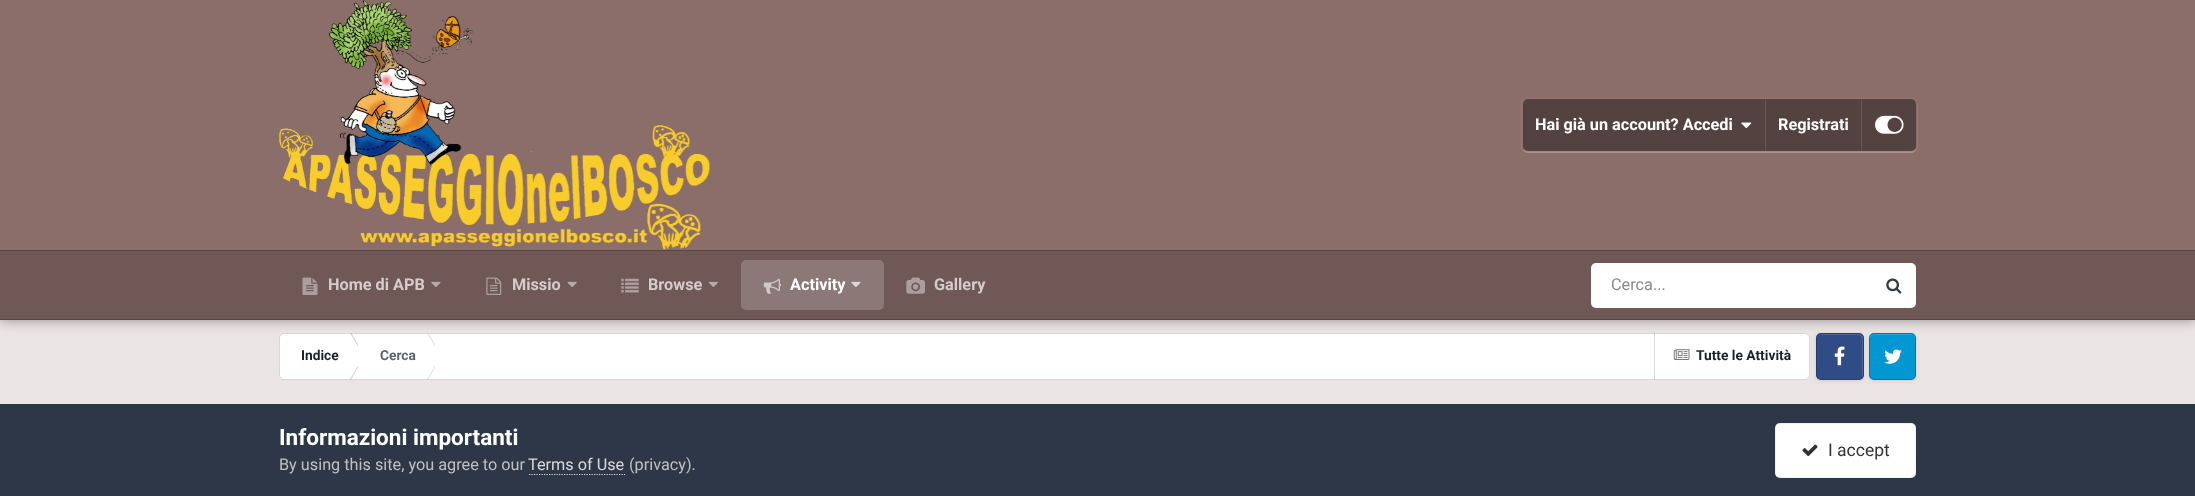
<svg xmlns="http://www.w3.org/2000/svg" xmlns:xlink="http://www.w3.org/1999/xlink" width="2195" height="496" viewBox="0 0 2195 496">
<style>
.cls-1{font:bold 16.25px Roboto;fill:#ffffff}
.cls-2{font:bold 16.25px Roboto;fill:#d4cdcc}
.cls-3{font:16.25px Roboto;fill:#868a8d}
.cls-4{font:bold 13.75px Roboto;fill:#1a202c}
.cls-5{font:bold 13.75px Roboto;fill:#5f636b}
.cls-6{font:bold 22.5px Roboto;fill:#ffffff}
.cls-7{font:16.25px Roboto;fill:#c0c0c0}
.cls-8{font:16.25px Roboto;fill:#dadada}
.cls-9{font:17.5px Roboto;fill:#333333}
</style>
<defs>
<clipPath id="clip1"><rect x="279" y="333" width="79" height="47"/></clipPath>
<clipPath id="clip2"><rect x="358" y="333" width="77" height="47"/></clipPath>
</defs>
<rect width="100%" height="100%" fill="#eae5e4"/>
<rect fill="#ffffff" x="279" y="333" width="1531" height="47" rx="5"/>
<g clip-path="url(#clip1)">
<path fill="#d7d8d9" d="M351.5 333H350L363.5 356H364.5ZM349.5 380H351L364.5 356H363.5Z"/>
</g>
<g clip-path="url(#clip2)">
<path fill="#e3e4e4" d="M428.5 333H427L440.5 356H441.5ZM426.5 380H428L441.5 356H440.5Z"/>
</g>
<rect fill="#d7d8d9" x="1654" y="333" width="1" height="47"/>
<image xlink:href="image13.png" x="1673" y="349" width="17" height="11"/>
<rect fill="none" stroke="#353c41" stroke-opacity="0.2" x="279.5" y="333.5" width="1530" height="46" rx="4.5"/>
<rect fill="#000000" fill-opacity="0.1" filter="blur(2px)" x="1816" y="334" width="48" height="47" rx="5"/>
<rect fill="#304c87" x="1816" y="333" width="48" height="47" rx="5"/>
<image xlink:href="image14.png" x="1834" y="346" width="11" height="20"/>
<path fill="#4f6799" d="M1821 335C1819 335 1818 337 1818 339V338C1818 336 1820 334 1822 334H1859C1861 334 1863 336 1863 338V375C1863 376 1862 377 1862 378V345C1862 344 1863 335 1859 335Z"/>
<rect fill="none" stroke="#000000" stroke-opacity="0.2" x="1816.5" y="333.5" width="47" height="46" rx="4.5"/>
<rect fill="#000000" fill-opacity="0.1" filter="blur(2px)" x="1869" y="334" width="47" height="47" rx="5"/>
<rect fill="#0097d3" x="1869" y="333" width="47" height="47" rx="5"/>
<path fill="#26a7da" d="M1874 335C1872 335 1870 337 1870 339C1870 333 1875 334 1880 334H1905C1910 334 1915 333 1915 339C1915 337 1913 335 1911 335Z"/>
<image xlink:href="image15.png" x="1884" y="349" width="18" height="15"/>
<rect fill="none" stroke="#000000" stroke-opacity="0.2" x="1869.5" y="333.5" width="46" height="46" rx="4.5"/>
<rect fill="#000000" fill-opacity="0.35" filter="blur(6px)" x="0" y="1" width="2195" height="320"/>
<rect fill="#8b6e6a" x="0" y="0" width="2195" height="250"/>
<image xlink:href="image0.png" x="279" y="0" width="431" height="250"/>
<rect fill="none" stroke="#937874" x="1521.5" y="98.5" width="396" height="54" rx="5.5"/>
<path fill="#ffffff" fill-opacity="0.2" d="M1523 148C1523 151 1525 153 1528 153H1911C1914 153 1916 151 1916 148C1915 150 1913 151 1911 151H1528C1526 151 1524 150 1523 148Z"/>
<rect fill="#000000" fill-opacity="0.4" x="1523" y="99" width="393" height="52" rx="5"/>
<image xlink:href="image1.png" x="1741" y="122" width="11" height="7"/>
<rect fill="#655553" x="1765" y="99" width="1" height="52"/>
<rect fill="#655553" x="1861" y="99" width="1" height="52"/>
<image xlink:href="image2.png" x="1875" y="115" width="29" height="19"/>
<rect fill="#6f5855" x="0" y="251" width="2195" height="68"/>
<rect fill="#594644" x="0" y="250" width="2195" height="1"/>
<rect fill="#594644" x="0" y="319" width="2195" height="1"/>
<image xlink:href="image3.png" x="302" y="277" width="16" height="18"/>
<image xlink:href="image4.png" x="431" y="281" width="10" height="6"/>
<image xlink:href="image5.png" x="486" y="277" width="16" height="18"/>
<image xlink:href="image6.png" x="567" y="281" width="10" height="6"/>
<image xlink:href="image7.png" x="621" y="278" width="18" height="15"/>
<image xlink:href="image8.png" x="708" y="281" width="10" height="6"/>
<rect fill="#8c7977" x="741" y="260" width="143" height="50" rx="5"/>
<image xlink:href="image9.png" x="763" y="278" width="19" height="16"/>
<image xlink:href="image10.png" x="851" y="281" width="10" height="6"/>
<image xlink:href="image11.png" x="906" y="277" width="19" height="17"/>
<rect fill="#ffffff" x="1591" y="263" width="325" height="45" rx="5"/>
<image xlink:href="image12.png" x="1886" y="278" width="16" height="16"/>
<rect fill="#2d3748" x="0" y="404" width="2195" height="92"/>
<path fill="none" stroke="#dadada" stroke-width="1.2" stroke-dasharray="1.25 1.25" d="M529 474.5H625"/>
<rect fill="#ffffff" x="1775" y="423" width="141" height="55" rx="5"/>
<rect fill="none" stroke="#333333" stroke-opacity="0.07" x="1775.5" y="423.5" width="140" height="54" rx="4.5"/>
<image xlink:href="image16.png" x="1802" y="444" width="16" height="13"/>
<text class="cls-1" x="1535" y="130">Hai già un account? Accedi</text>
<text class="cls-1" x="1778" y="130">Registrati</text>
<text class="cls-2" x="328" y="290">Home di APB</text>
<text class="cls-2" x="512" y="290">Missio</text>
<text class="cls-2" x="648" y="290">Browse</text>
<text class="cls-1" x="790" y="290">Activity</text>
<text class="cls-2" x="934" y="290">Gallery</text>
<text class="cls-3" x="1611" y="290">Cerca...</text>
<text class="cls-4" x="301" y="360">Indice</text>
<text class="cls-5" x="380" y="360">Cerca</text>
<text class="cls-4" x="1696" y="360">Tutte le Attività</text>
<text class="cls-6" x="279" y="445">Informazioni importanti</text>
<text class="cls-7" x="279" y="470">By using this site, you agree to our</text>
<text class="cls-8" x="528" y="470">Terms of Use</text>
<text class="cls-7" x="629" y="470">(privacy).</text>
<text class="cls-9" x="1828" y="456">I accept</text>
</svg>
